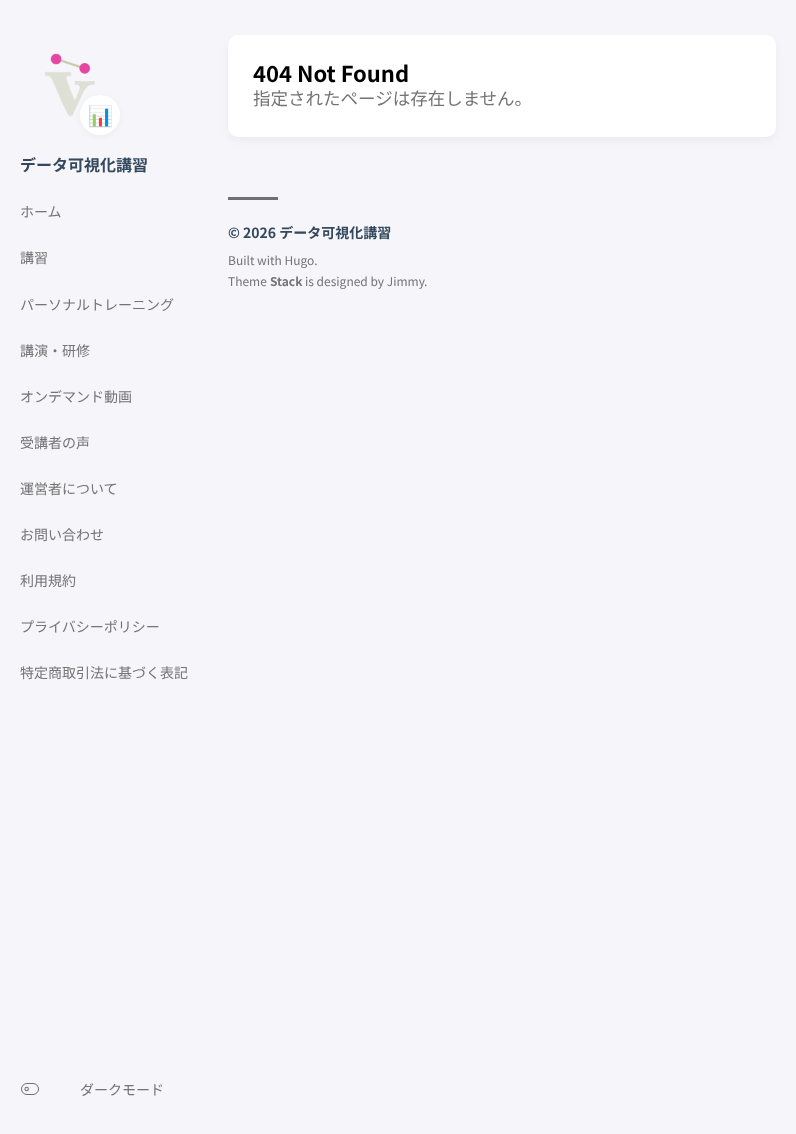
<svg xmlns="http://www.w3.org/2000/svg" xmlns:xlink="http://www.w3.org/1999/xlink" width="796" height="1134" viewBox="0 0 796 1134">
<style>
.cls-1{font:20px Noto Color Emoji;fill:#000000}
.cls-2{font:bold 16px Noto Sans JP;fill:#34495e}
.cls-3{font:14px Noto Sans JP;fill:#747474}
.cls-4{font:bold 22px Noto Sans JP;fill:#000000}
.cls-5{font:17.5px Noto Sans JP;fill:#747474}
.cls-6{font:bold 14px Noto Sans JP;fill:#34495e}
.cls-7{font:12px Noto Sans JP;fill:#747474}
.cls-8{font:bold 12px Noto Sans JP;fill:#747474}
</style>
<rect width="100%" height="100%" fill="#f5f5fa"/>
<image xlink:href="image0.png" x="44" y="53" width="51" height="64"/>
<rect fill="#000000" fill-opacity="0.04" filter="blur(3px)" x="80" y="97" width="40" height="40" rx="20"/>
<circle fill="#ffffff" cx="100" cy="115" r="20"/>
<circle fill="none" stroke="#707070" stroke-width="1.1" cx="26.7" cy="1089" r="1.7"/>
<rect fill="none" stroke="#707070" x="21.5" y="1083.5" width="17" height="11" rx="5.5"/>
<rect fill="#000000" fill-opacity="0.04" filter="blur(4px)" x="228" y="39" width="548" height="102" rx="10"/>
<rect fill="#ffffff" x="228" y="35" width="548" height="102" rx="10"/>
<rect fill="#707070" x="228" y="197" width="50" height="3"/>
<text class="cls-1" x="88" y="123">📊</text>
<text class="cls-2" x="20" y="171">データ可視化講習</text>
<text class="cls-3" x="20" y="217">ホーム</text>
<text class="cls-3" x="20" y="263">講習</text>
<text class="cls-3" x="20" y="310">パーソナルトレーニング</text>
<text class="cls-3" x="20" y="356">講演・研修</text>
<text class="cls-3" x="20" y="402">オンデマンド動画</text>
<text class="cls-3" x="20" y="448">受講者の声</text>
<text class="cls-3" x="20" y="494">運営者について</text>
<text class="cls-3" x="20" y="540">お問い合わせ</text>
<text class="cls-3" x="20" y="586">利用規約</text>
<text class="cls-3" x="20" y="632">プライバシーポリシー</text>
<text class="cls-3" x="20" y="678">特定商取引法に基づく表記</text>
<text class="cls-3" x="80" y="1095">ダークモード</text>
<text class="cls-4" x="253" y="82">404 Not Found</text>
<text class="cls-5" x="253" y="105">指定されたページは存在しません。</text>
<text class="cls-6" x="228" y="238">© 2026 データ可視化講習</text>
<text class="cls-7"><tspan x="228" y="265">Built with Hugo.</tspan><tspan x="228" y="286">Theme</tspan></text>
<text class="cls-8" x="270" y="286">Stack</text>
<text class="cls-7" x="305" y="286">is designed by Jimmy</text>
<text class="cls-7" x="424" y="286">.</text>
</svg>
